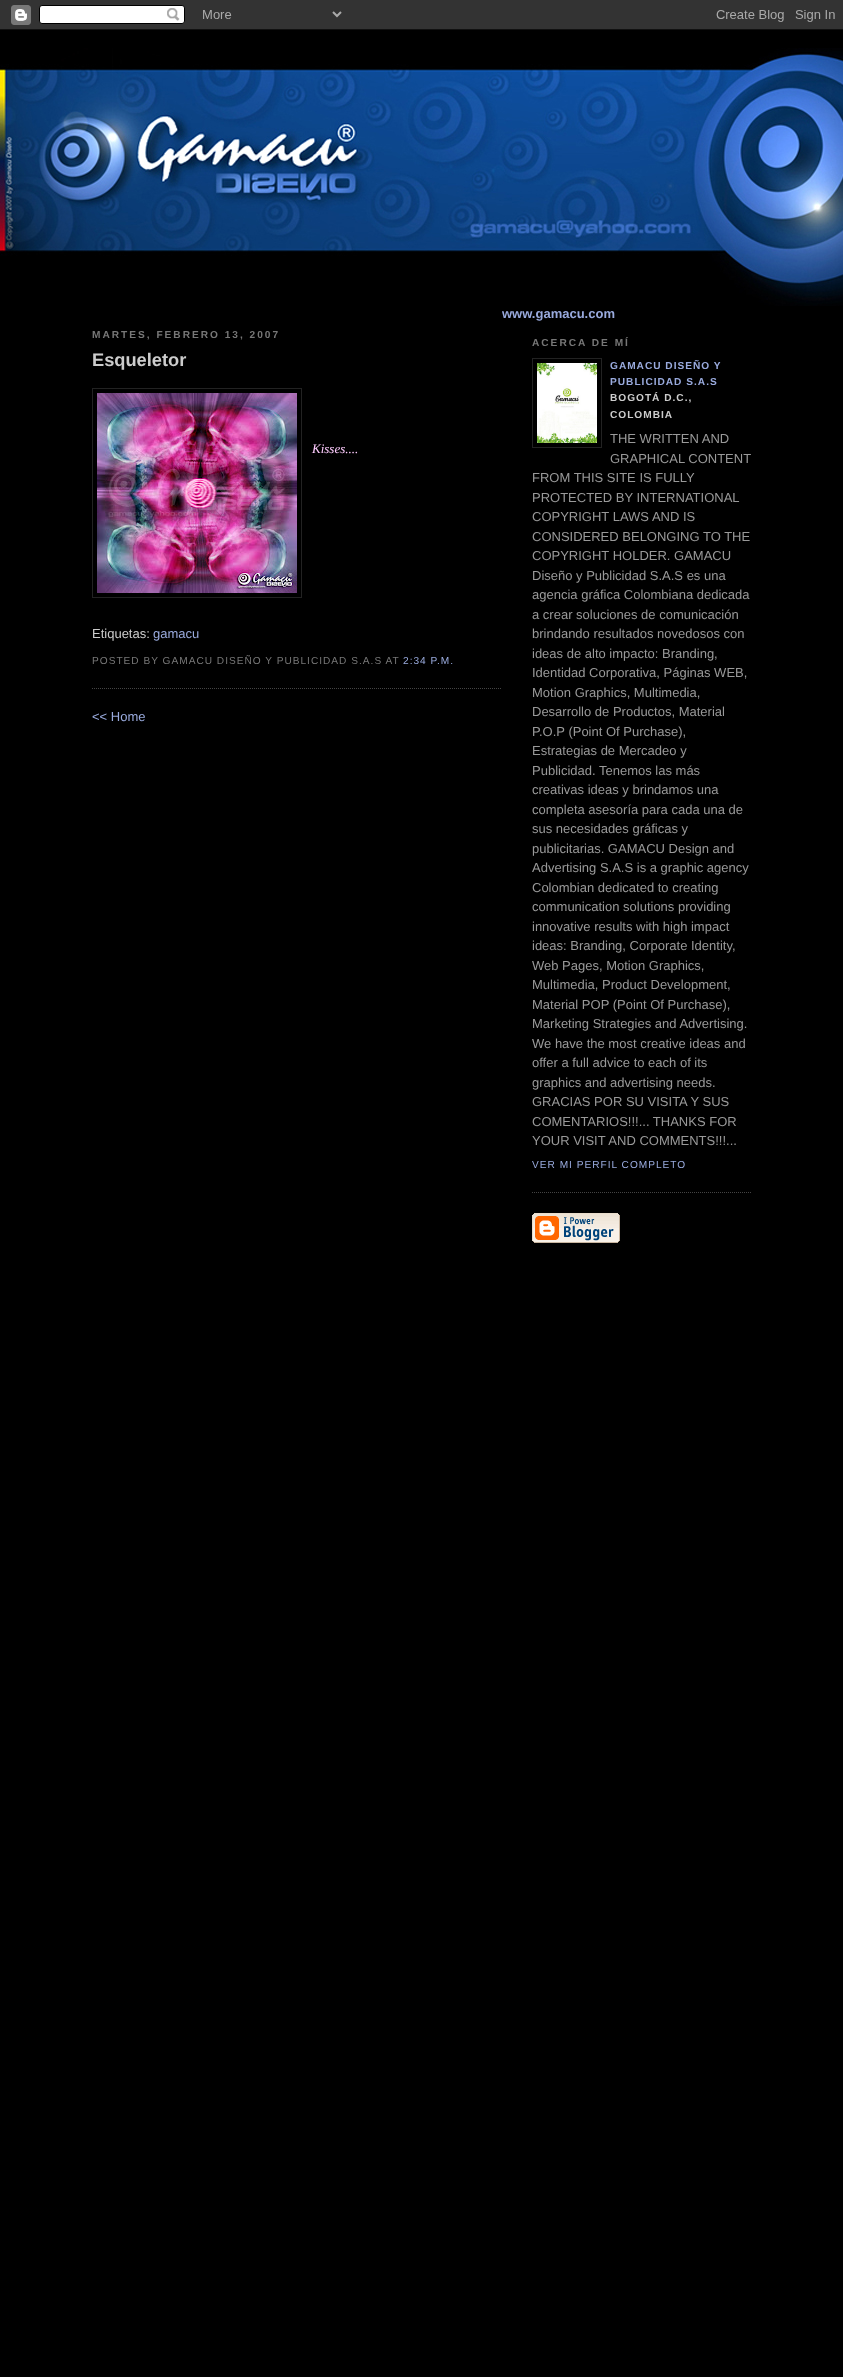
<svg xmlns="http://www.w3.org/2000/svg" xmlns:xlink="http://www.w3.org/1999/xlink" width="843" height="2377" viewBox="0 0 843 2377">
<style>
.cls-1{font:bold 13px Liberation Sans;fill:#99aadd}
.cls-2{font:bold 10.15px Liberation Sans;letter-spacing:2px;fill:#777777}
.cls-3{font:bold 18.25px Liberation Sans;fill:#cccccc}
.cls-4{font:italic 13px Liberation Serif;fill:#ffccff}
.cls-5{font:13px Liberation Sans;fill:#cccccc}
.cls-6{font:13px Liberation Sans;fill:#99aadd}
.cls-7{font:10.15px Liberation Sans;letter-spacing:1px;fill:#777777}
.cls-8{font:10.15px Liberation Sans;letter-spacing:1px;fill:#99aadd}
.cls-9{font:bold 10.15px Liberation Sans;letter-spacing:1px;fill:#99aadd}
.cls-10{font:bold 10.15px Liberation Sans;letter-spacing:1px;fill:#cccccc}
.cls-11{font:13px Liberation Sans;fill:#999999}
</style>
<rect width="100%" height="100%" fill="#000000"/>
<image xlink:href="image0.png" x="0" y="0" width="843" height="30"/>
<image xlink:href="image1.png" x="0" y="48" width="843" height="258"/>
<path fill="none" stroke="#444444" stroke-dasharray="1 1" d="M92 688.5H502"/>
<rect fill="none" stroke="#222222" x="92.5" y="388.5" width="209" height="209"/>
<image xlink:href="image2.png" x="97" y="393" width="200" height="200"/>
<path fill="none" stroke="#444444" stroke-dasharray="1 1" d="M532 1192.5H752"/>
<rect fill="none" stroke="#222222" x="532.5" y="358.5" width="69" height="89"/>
<image xlink:href="image3.png" x="537" y="363" width="60" height="80"/>
<image xlink:href="image4.png" x="532" y="1213" width="88" height="30"/>
<text class="cls-1" x="502" y="318">www.gamacu.com</text>
<text class="cls-2" x="92" y="338">MARTES, FEBRERO 13, 2007</text>
<text class="cls-3" x="92" y="366">Esqueletor</text>
<text class="cls-4" x="312" y="453">Kisses....</text>
<text class="cls-5" x="92" y="638">Etiquetas:</text>
<text class="cls-6" x="153" y="638">gamacu</text>
<text class="cls-7" x="92" y="664">POSTED BY GAMACU DISEÑO Y PUBLICIDAD S.A.S AT</text>
<text class="cls-8" x="403" y="664">2:34 P.M.</text>
<text class="cls-6" x="92" y="721">&lt;&lt; Home</text>
<text class="cls-2" x="532" y="346">ACERCA DE MÍ</text>
<text class="cls-9"><tspan x="610" y="369">GAMACU DISEÑO Y</tspan><tspan x="610" y="385">PUBLICIDAD S.A.S</tspan></text>
<text class="cls-10"><tspan x="610" y="401">BOGOTÁ D.C.,</tspan><tspan x="610" y="418">COLOMBIA</tspan></text>
<text class="cls-11"><tspan x="610" y="443">THE WRITTEN AND</tspan><tspan x="610" y="463">GRAPHICAL CONTENT</tspan></text>
<text class="cls-11"><tspan x="532" y="482">FROM THIS SITE IS FULLY</tspan><tspan x="532" y="502">PROTECTED BY INTERNATIONAL</tspan><tspan x="532" y="521">COPYRIGHT LAWS AND IS</tspan><tspan x="532" y="541">CONSIDERED BELONGING TO THE</tspan><tspan x="532" y="560">COPYRIGHT HOLDER. GAMACU</tspan><tspan x="532" y="580">Diseño y Publicidad S.A.S es una</tspan><tspan x="532" y="599">agencia gráfica Colombiana dedicada</tspan><tspan x="532" y="619">a crear soluciones de comunicación</tspan><tspan x="532" y="638">brindando resultados novedosos con</tspan><tspan x="532" y="658">ideas de alto impacto: Branding,</tspan><tspan x="532" y="677">Identidad Corporativa, Páginas WEB,</tspan><tspan x="532" y="697">Motion Graphics, Multimedia,</tspan><tspan x="532" y="716">Desarrollo de Productos, Material</tspan><tspan x="532" y="736">P.O.P (Point Of Purchase),</tspan><tspan x="532" y="755">Estrategias de Mercadeo y</tspan><tspan x="532" y="775">Publicidad. Tenemos las más</tspan><tspan x="532" y="794">creativas ideas y brindamos una</tspan><tspan x="532" y="814">completa asesoría para cada una de</tspan><tspan x="532" y="833">sus necesidades gráficas y</tspan><tspan x="532" y="853">publicitarias. GAMACU Design and</tspan><tspan x="532" y="872">Advertising S.A.S is a graphic agency</tspan><tspan x="532" y="892">Colombian dedicated to creating</tspan><tspan x="532" y="911">communication solutions providing</tspan><tspan x="532" y="931">innovative results with high impact</tspan><tspan x="532" y="950">ideas: Branding, Corporate Identity,</tspan><tspan x="532" y="970">Web Pages, Motion Graphics,</tspan><tspan x="532" y="989">Multimedia, Product Development,</tspan><tspan x="532" y="1009">Material POP (Point Of Purchase),</tspan><tspan x="532" y="1028">Marketing Strategies and Advertising.</tspan><tspan x="532" y="1048">We have the most creative ideas and</tspan><tspan x="532" y="1067">offer a full advice to each of its</tspan><tspan x="532" y="1087">graphics and advertising needs.</tspan><tspan x="532" y="1106">GRACIAS POR SU VISITA Y SUS</tspan><tspan x="532" y="1126">COMENTARIOS!!!... THANKS FOR</tspan><tspan x="532" y="1145">YOUR VISIT AND COMMENTS!!!...</tspan></text>
<text class="cls-8" x="532" y="1168">VER MI PERFIL COMPLETO</text>
</svg>
